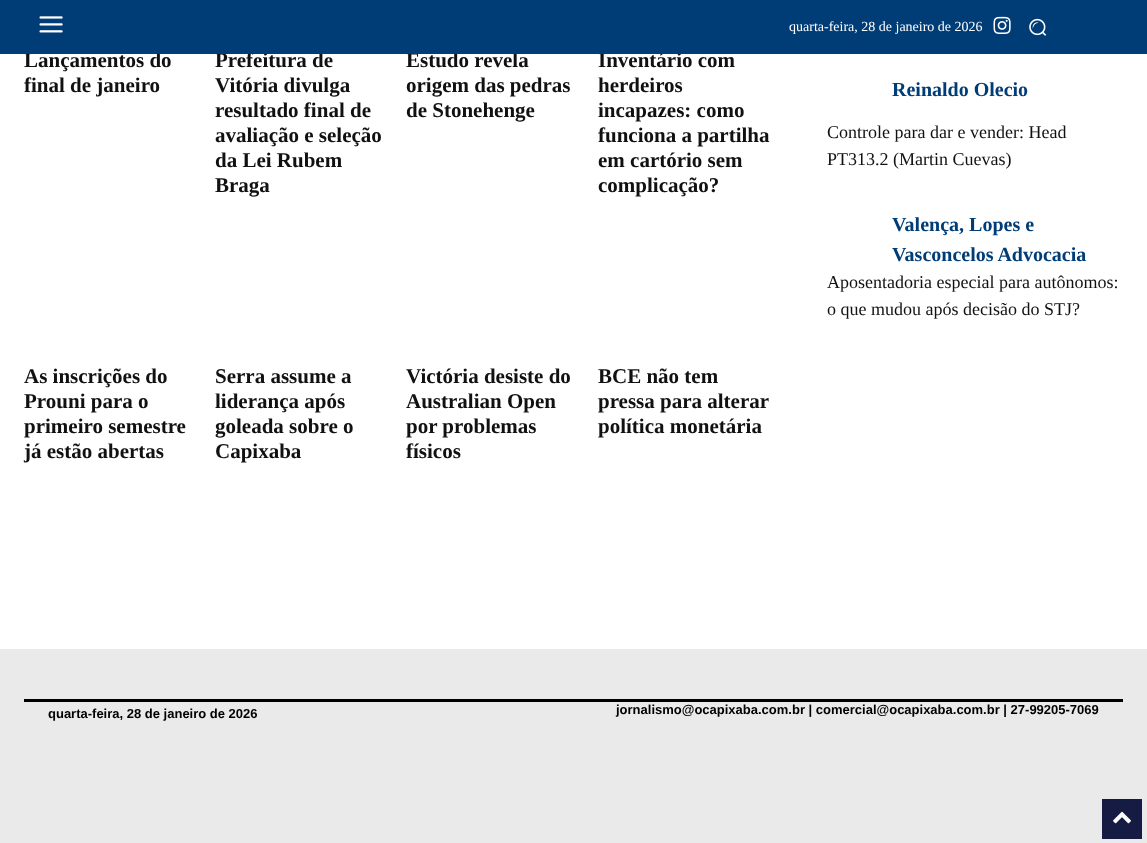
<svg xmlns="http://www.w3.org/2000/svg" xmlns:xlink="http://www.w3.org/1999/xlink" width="1147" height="843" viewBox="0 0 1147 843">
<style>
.cls-1{font:bold 21px Liberation Serif;fill:#111111}
.cls-2{font:14px Liberation Serif;fill:#ffffff}
.cls-3{font:bold 20px Liberation Serif;fill:#003d76}
.cls-4{font:18px Liberation Serif;fill:#111111}
.cls-5{font:bold 13px Liberation Sans;fill:#000000}
</style>
<rect width="100%" height="100%" fill="#ffffff"/>
<rect fill="#eaeaea" x="0" y="649" width="1147" height="194"/>
<rect fill="#000000" x="24" y="699" width="1099" height="3"/>
<rect fill="#161b43" x="1102" y="799" width="40" height="40"/>
<image xlink:href="image3.png" x="1113" y="811" width="18" height="13"/>
<text class="cls-1"><tspan x="24" y="67">Lançamentos do</tspan><tspan x="24" y="92">final de janeiro</tspan></text>
<text class="cls-1"><tspan x="215" y="67">Prefeitura de</tspan><tspan x="215" y="92">Vitória divulga</tspan><tspan x="215" y="117">resultado final de</tspan><tspan x="215" y="142">avaliação e seleção</tspan><tspan x="215" y="167">da Lei Rubem</tspan><tspan x="215" y="192">Braga</tspan></text>
<text class="cls-1"><tspan x="406" y="67">Estudo revela</tspan><tspan x="406" y="92">origem das pedras</tspan><tspan x="406" y="117">de Stonehenge</tspan></text>
<text class="cls-1" x="598" y="67">Inventário com</text>
<rect fill="#003d76" x="0" y="0" width="1147" height="54"/>
<image xlink:href="image2.png" x="1029" y="18" width="18" height="18"/>
<image xlink:href="image1.png" x="993" y="16" width="18" height="18"/>
<text class="cls-2" x="789" y="31">quarta-feira, 28 de janeiro de 2026</text>
<image xlink:href="image0.png" x="39" y="16" width="24" height="17"/>
<text class="cls-1"><tspan x="598" y="92">herdeiros</tspan><tspan x="598" y="117">incapazes: como</tspan><tspan x="598" y="142">funciona a partilha</tspan><tspan x="598" y="167">em cartório sem</tspan><tspan x="598" y="192">complicação?</tspan></text>
<text class="cls-1"><tspan x="24" y="383">As inscrições do</tspan><tspan x="24" y="408">Prouni para o</tspan><tspan x="24" y="433">primeiro semestre</tspan><tspan x="24" y="458">já estão abertas</tspan></text>
<text class="cls-1"><tspan x="215" y="383">Serra assume a</tspan><tspan x="215" y="408">liderança após</tspan><tspan x="215" y="433">goleada sobre o</tspan><tspan x="215" y="458">Capixaba</tspan></text>
<text class="cls-1"><tspan x="406" y="383">Victória desiste do</tspan><tspan x="406" y="408">Australian Open</tspan><tspan x="406" y="433">por problemas</tspan><tspan x="406" y="458">físicos</tspan></text>
<text class="cls-1"><tspan x="598" y="383">BCE não tem</tspan><tspan x="598" y="408">pressa para alterar</tspan><tspan x="598" y="433">política monetária</tspan></text>
<text class="cls-3" x="892" y="96">Reinaldo Olecio</text>
<text class="cls-4"><tspan x="827" y="138">Controle para dar e vender: Head</tspan><tspan x="827" y="165">PT313.2 (Martin Cuevas)</tspan></text>
<text class="cls-3"><tspan x="892" y="231">Valença, Lopes e</tspan><tspan x="892" y="261">Vasconcelos Advocacia</tspan></text>
<text class="cls-4"><tspan x="827" y="288">Aposentadoria especial para autônomos:</tspan><tspan x="827" y="315">o que mudou após decisão do STJ?</tspan></text>
<text class="cls-5" x="48" y="718">quarta-feira, 28 de janeiro de 2026</text>
<text class="cls-5" x="616" y="714">jornalismo@ocapixaba.com.br | comercial@ocapixaba.com.br | 27-99205-7069</text>
</svg>
